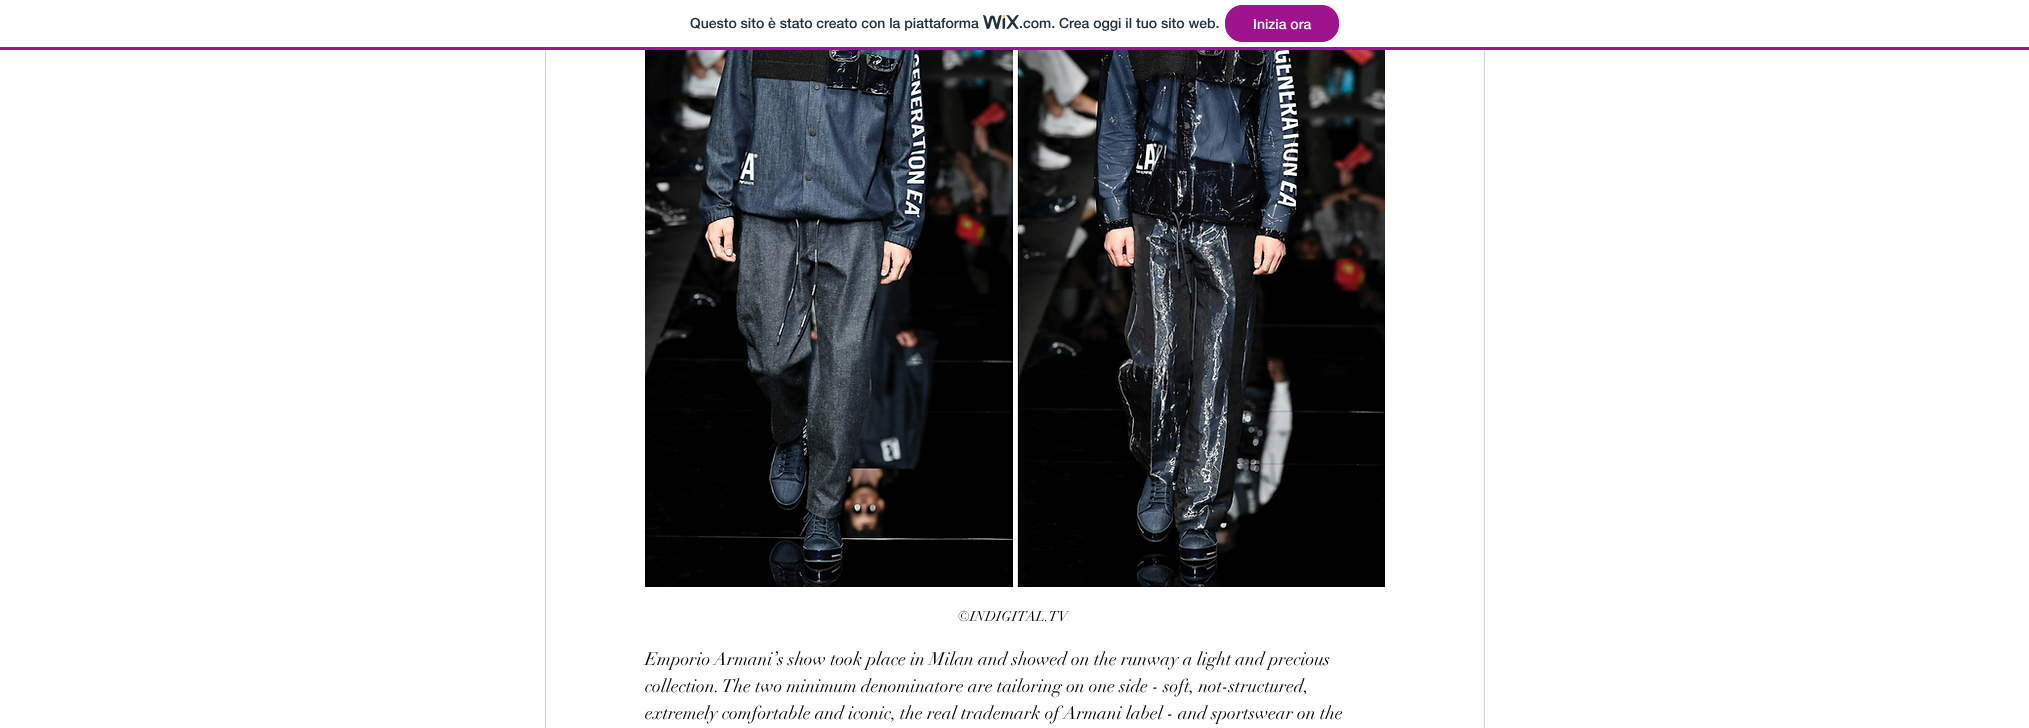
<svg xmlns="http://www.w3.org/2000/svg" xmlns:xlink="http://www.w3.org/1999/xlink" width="2029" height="728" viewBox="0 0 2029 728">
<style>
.cls-1{font:500 14px 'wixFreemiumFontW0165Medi';fill:#20303c}
.cls-2{font:500 14px 'wixFreemiumFontW0165Medi';fill:#ffffff}
.cls-3{font:14px didot;fill:#000000}
.cls-4{font:18px didot;fill:#000000}
</style>
<rect width="100%" height="100%" fill="#ffffff"/>
<rect fill="none" stroke="#d4d4d4" x="545.5" y="-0.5" width="939" height="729"/>
<rect fill="#ffffff" x="545" y="0" width="940" height="47"/>
<rect fill="#a0138e" x="0" y="47" width="2029" height="3"/>
<image xlink:href="image0.png" x="983" y="15" width="36" height="15"/>
<rect fill="#a0138e" stroke="#a0138e" x="1225.5" y="5.5" width="113" height="36" rx="16.5"/>
<image xlink:href="image1.png" x="645" y="50" width="740" height="537"/>
<text class="cls-1" x="690" y="28">Questo sito è stato creato con la piattaforma</text>
<text class="cls-1" x="1019" y="28">.com. Crea oggi il tuo sito web.</text>
<text class="cls-2" x="1253" y="29">Inizia ora</text>
<text class="cls-3" x="958" y="621">©INDIGITAL.TV</text>
<text class="cls-4"><tspan x="645" y="665">Emporio Armani’s show took place in Milan and showed on the runway a light and precious</tspan><tspan x="645" y="692">collection. The two minimum denominatore are tailoring on one side - soft, not-structured,</tspan><tspan x="645" y="719">extremely comfortable and iconic, the real trademark of Armani label - and sportswear on the</tspan></text>
</svg>
